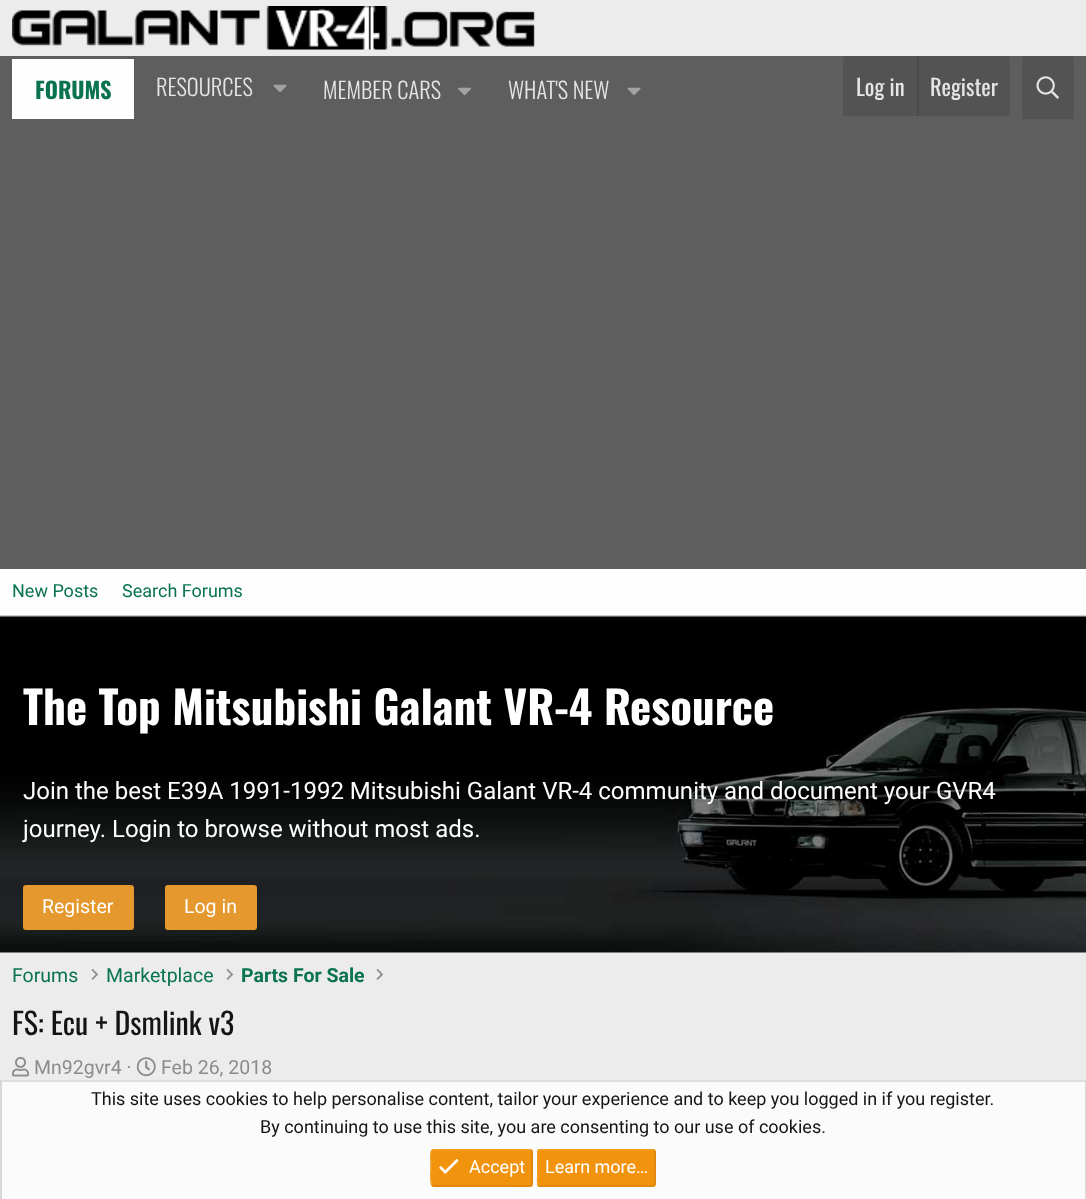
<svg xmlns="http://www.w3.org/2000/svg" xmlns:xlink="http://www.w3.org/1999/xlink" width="1086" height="1199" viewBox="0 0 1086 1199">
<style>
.cls-1{font:bold 22.5px Oswald;fill:#09734e}
.cls-2{font:300 22.5px Oswald;fill:#e6e6e6}
.cls-3{font:22.5px Oswald;fill:#e6e6e6}
.cls-4{font:18px Roboto;fill:#09734e}
.cls-5{font:bold 45px Oswald;fill:#ffffff}
.cls-6{font:24px Roboto;fill:#ffffff}
.cls-7{font:19.5px Roboto;fill:#ffffff}
.cls-8{font:19.5px Roboto;fill:#09734e}
.cls-9{font:bold 19.5px Roboto;fill:#09734e}
.cls-10{font:30px Oswald;fill:#141414}
.cls-11{font:19.5px Roboto;fill:#8c8c8c}
.cls-12{font:18px Roboto;fill:#141414}
.cls-13{font:18px Roboto;fill:#ffffff}
</style>
<rect width="100%" height="100%" fill="#ececec"/>
<image xlink:href="image0.png" x="12" y="6" width="523" height="44"/>
<rect fill="#5e5e5e" x="0" y="56" width="1086" height="513"/>
<rect fill="#fefefe" x="12" y="59" width="122" height="60"/>
<image xlink:href="image1.png" x="273" y="84" width="14" height="8"/>
<image xlink:href="image2.png" x="458" y="87" width="13" height="9"/>
<image xlink:href="image1.png" x="627" y="87" width="14" height="8"/>
<path fill="#535353" d="M846 56H1007C1008.5 56 1010 57.5 1010 59V116H843V59C843 57.5 844.5 56 846 56Z"/>
<rect fill="#4a4a4a" x="917" y="56" width="2" height="60"/>
<path fill="#535353" d="M1025 56H1071C1072.5 56 1074 57.5 1074 59V119H1022V59C1022 57.5 1023.5 56 1025 56Z"/>
<image xlink:href="image3.png" x="1036" y="76" width="23" height="23"/>
<rect fill="#fefefe" x="0" y="569" width="1086" height="46"/>
<rect fill="#cbcbcb" x="0" y="615" width="1086" height="2"/>
<image xlink:href="image4.png" x="0" y="616" width="1086" height="337"/>
<rect fill="#e4982d" stroke="#e4982d" stroke-width="2" x="24" y="886" width="109" height="43" rx="2"/>
<rect fill="#e4982d" stroke="#e4982d" stroke-width="2" x="166" y="886" width="90" height="43" rx="2"/>
<image xlink:href="image5.png" x="91" y="969" width="7" height="11"/>
<image xlink:href="image5.png" x="226" y="969" width="7" height="11"/>
<image xlink:href="image5.png" x="376" y="969" width="7" height="11"/>
<image xlink:href="image6.png" x="12" y="1056" width="18" height="21"/>
<image xlink:href="image7.png" x="136" y="1057" width="20" height="20"/>
<rect fill="#fbfbfb" x="2" y="1082" width="1083" height="117"/>
<rect fill="#dfdfdf" x="0" y="1080" width="1086" height="2"/>
<rect fill="#d8d8d8" x="1085" y="1080" width="1" height="119"/>
<rect fill="#d8d8d8" x="0" y="1080" width="2" height="119"/>
<rect fill="#f2930d" x="431" y="1149" width="102" height="38" rx="3"/>
<path fill="none" stroke="#da840c" stroke-width="1.5" d="M531 1150.5C533 1152 532 1165 532 1168C532 1190 536 1186 513.5 1186H433.5L432 1185"/>
<path fill="none" stroke="#f39e25" stroke-width="1.5" d="M432 1185C430 1183.5 431 1170.5 431 1168C431 1145.5 427 1150 449.5 1150H529.5L531 1150.5"/>
<image xlink:href="image8.png" x="439" y="1159" width="20" height="15"/>
<rect fill="#f2930d" x="537" y="1149" width="119" height="38" rx="3"/>
<path fill="none" stroke="#da840c" stroke-width="1.5" d="M654 1150.5C656 1152 655 1160.5 655 1162.5V1178C655 1179.5 656 1185.5 652.5 1186H540L538.5 1185"/>
<path fill="none" stroke="#f39e25" stroke-width="1.5" d="M538.5 1185C536.5 1183.5 538 1175 538 1173V1157C538 1156 536.5 1150 540 1150H652.5L654 1150.5"/>
<text class="cls-1" x="35" y="99">FORUMS</text>
<text class="cls-2" x="156" y="96">RESOURCES</text>
<text class="cls-2" x="323" y="99">MEMBER CARS</text>
<text class="cls-2" x="508" y="99">WHAT'S NEW</text>
<text class="cls-3" x="856" y="96">Log in</text>
<text class="cls-3" x="930" y="96">Register</text>
<text class="cls-4" x="12" y="597">New Posts</text>
<text class="cls-4" x="122" y="597">Search Forums</text>
<text class="cls-5" x="23" y="725">The Top Mitsubishi Galant VR-4 Resource</text>
<text class="cls-6"><tspan x="23" y="799">Join the best E39A 1991-1992 Mitsubishi Galant VR-4 community and document your GVR4</tspan><tspan x="23" y="837">journey. Login to browse without most ads.</tspan></text>
<text class="cls-7" x="42" y="913">Register</text>
<text class="cls-7" x="184" y="913">Log in</text>
<text class="cls-8" x="12" y="982">Forums</text>
<text class="cls-8" x="106" y="982">Marketplace</text>
<text class="cls-9" x="241" y="982">Parts For Sale</text>
<text class="cls-10" x="12" y="1035">FS: Ecu + Dsmlink v3</text>
<text class="cls-11" x="34" y="1074">Mn92gvr4 ·</text>
<text class="cls-11" x="161" y="1074">Feb 26, 2018</text>
<text class="cls-12" x="91" y="1105">This site uses cookies to help personalise content, tailor your experience and to keep you logged in if you register.</text>
<text class="cls-12" x="260" y="1133">By continuing to use this site, you are consenting to our use of cookies.</text>
<text class="cls-13" x="469" y="1173">Accept</text>
<text class="cls-13" x="545" y="1173">Learn more…</text>
</svg>
